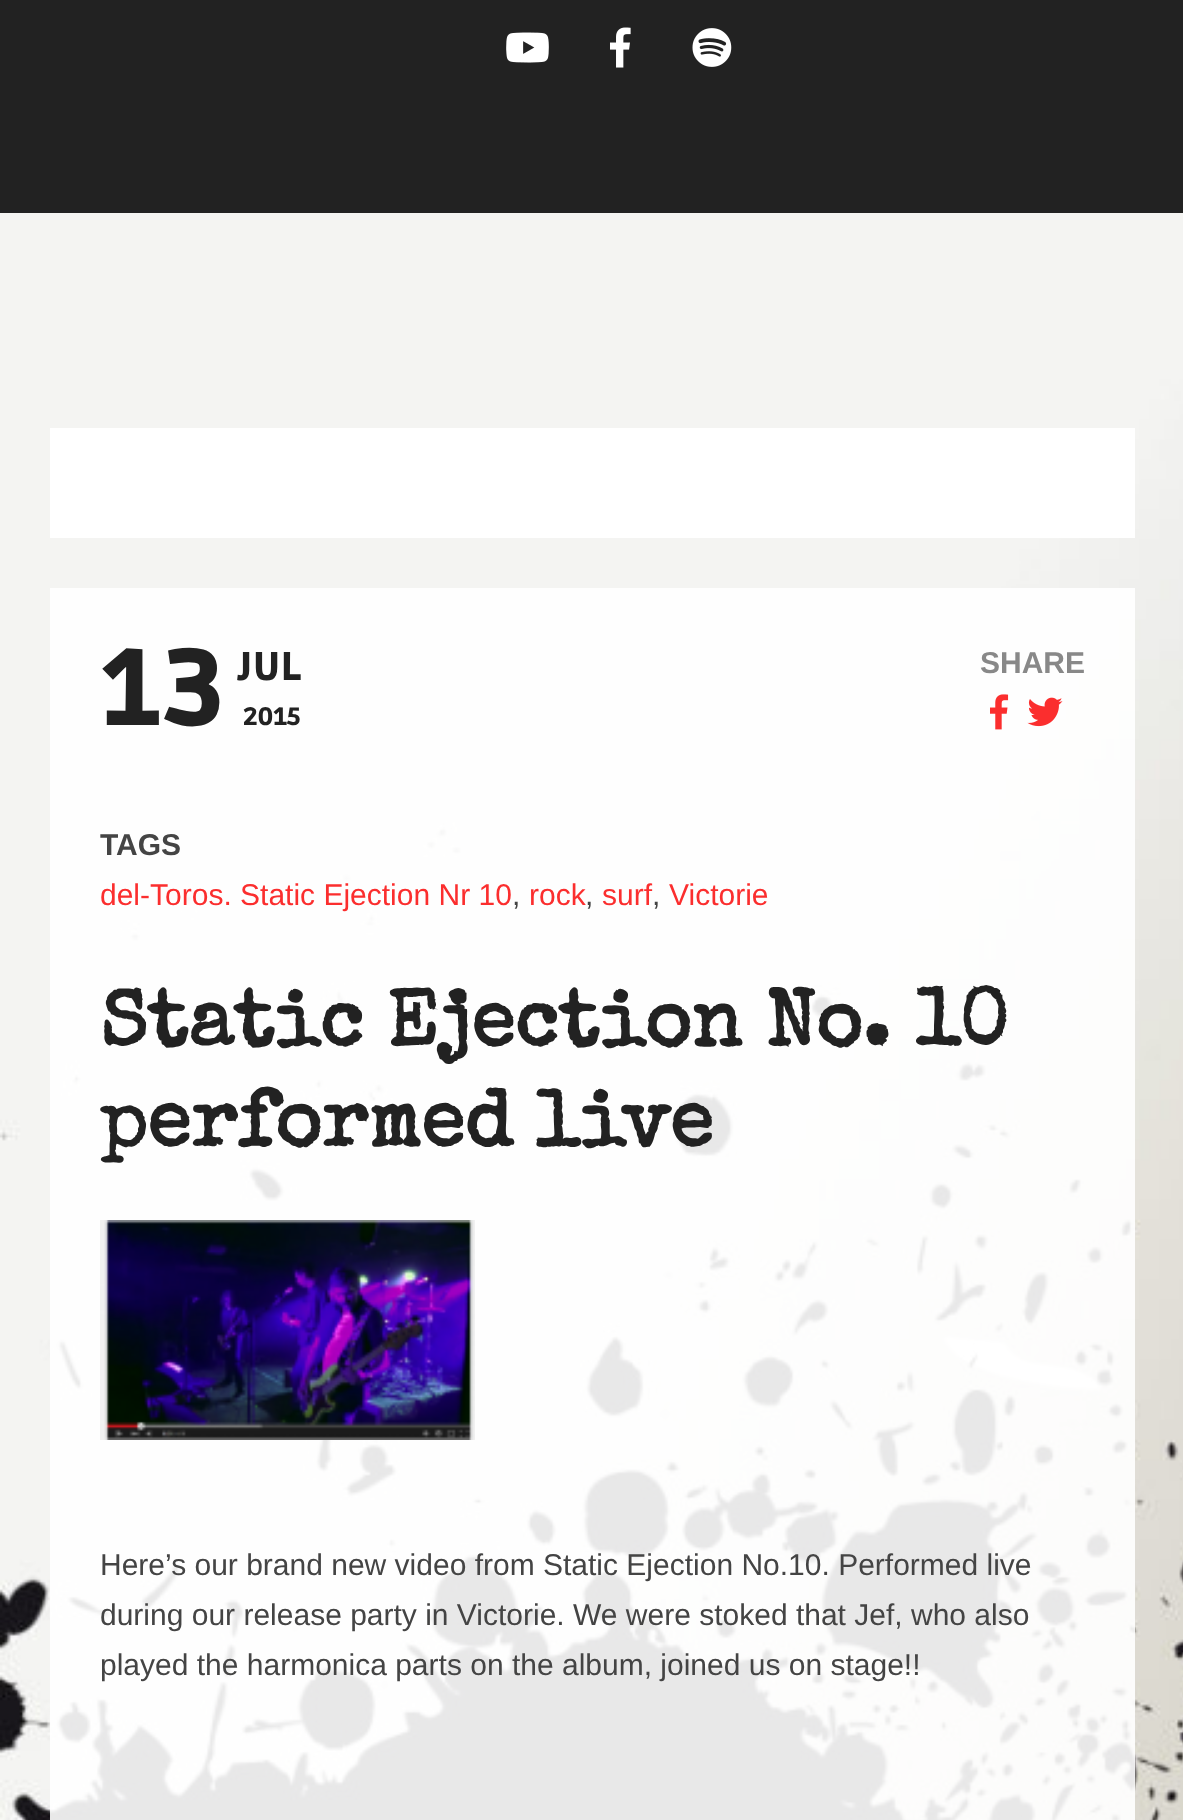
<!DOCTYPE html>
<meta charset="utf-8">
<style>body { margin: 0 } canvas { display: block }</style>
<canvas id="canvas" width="1183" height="1820"></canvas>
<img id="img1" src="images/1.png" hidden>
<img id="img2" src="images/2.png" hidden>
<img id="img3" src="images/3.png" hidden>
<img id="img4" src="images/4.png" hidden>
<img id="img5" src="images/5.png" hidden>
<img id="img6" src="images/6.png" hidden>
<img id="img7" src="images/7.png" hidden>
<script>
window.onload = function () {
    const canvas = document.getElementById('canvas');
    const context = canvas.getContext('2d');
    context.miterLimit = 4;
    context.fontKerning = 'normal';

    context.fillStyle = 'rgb(255, 255, 255)';
    context.fillRect(0, 0, 1183, 1820);
    context.drawImage(document.getElementById('img1'), 0, 213, 1183, 1607);
    context.fillStyle = 'rgb(34, 34, 34)';
    context.fillRect(0, 0, 1183, 213);
    context.drawImage(document.getElementById('img2'), 506, 32, 43, 31);
    context.drawImage(document.getElementById('img3'), 610, 27, 21, 41);
    context.drawImage(document.getElementById('img4'), 692, 28, 40, 39);
    context.fillStyle = 'rgb(255, 255, 255)';
    context.fillRect(50, 428, 1085, 110);
    context.fillStyle = 'rgba(255, 255, 255, 0.9)';
    context.fillRect(50, 588, 1085, 1232);
    context.drawImage(document.getElementById('img5'), 990, 694, 19, 36);
    context.drawImage(document.getElementById('img6'), 1027, 697, 36, 30);
    context.drawImage(document.getElementById('img7'), 100, 1220, 375, 220);
    context.font = '900 108px Ruda';
    context.fillStyle = 'rgb(34, 34, 34)';
    context.fillText('13', 100, 725);
    context.font = '900 40px Ruda';
    context.fillText('JUL', 238, 680);
    context.font = '900 25px Ruda';
    context.fillText('2015', 243, 725);
    context.font = 'bold 30px Liberation Sans';
    context.fillStyle = 'rgb(136, 136, 136)';
    context.fillText('SHARE', 980, 673);
    context.fillStyle = 'rgb(68, 68, 68)';
    context.fillText('TAGS', 100, 855);
    context.font = '30px Liberation Sans';
    context.fillStyle = 'rgb(251, 46, 46)';
    context.fillText('del-Toros. Static Ejection Nr 10', 100, 905);
    context.fillStyle = 'rgb(68, 68, 68)';
    context.fillText(',', 512, 905);
    context.fillStyle = 'rgb(251, 46, 46)';
    context.fillText('rock', 529, 905);
    context.fillStyle = 'rgb(68, 68, 68)';
    context.fillText(',', 585, 905);
    context.fillStyle = 'rgb(251, 46, 46)';
    context.fillText('surf', 602, 905);
    context.fillStyle = 'rgb(68, 68, 68)';
    context.fillText(',', 652, 905);
    context.fillStyle = 'rgb(251, 46, 46)';
    context.fillText('Victorie', 669, 905);
    context.font = 'bold 80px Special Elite';
    context.fillStyle = 'rgb(34, 34, 34)';
    context.fillText('Static Ejection No. 10', 100, 1045);
    context.fillText('performed live', 100, 1145);
    context.font = '30px Liberation Sans';
    context.fillStyle = 'rgb(68, 68, 68)';
    context.fillText('Here’s our brand new video from Static Ejection No.10. Performed live', 100, 1575);
    context.fillText('during our release party in Victorie. We were stoked that Jef, who also', 100, 1625);
    context.fillText('played the harmonica parts on the album, joined us on stage!!', 100, 1675);
};
</script>
